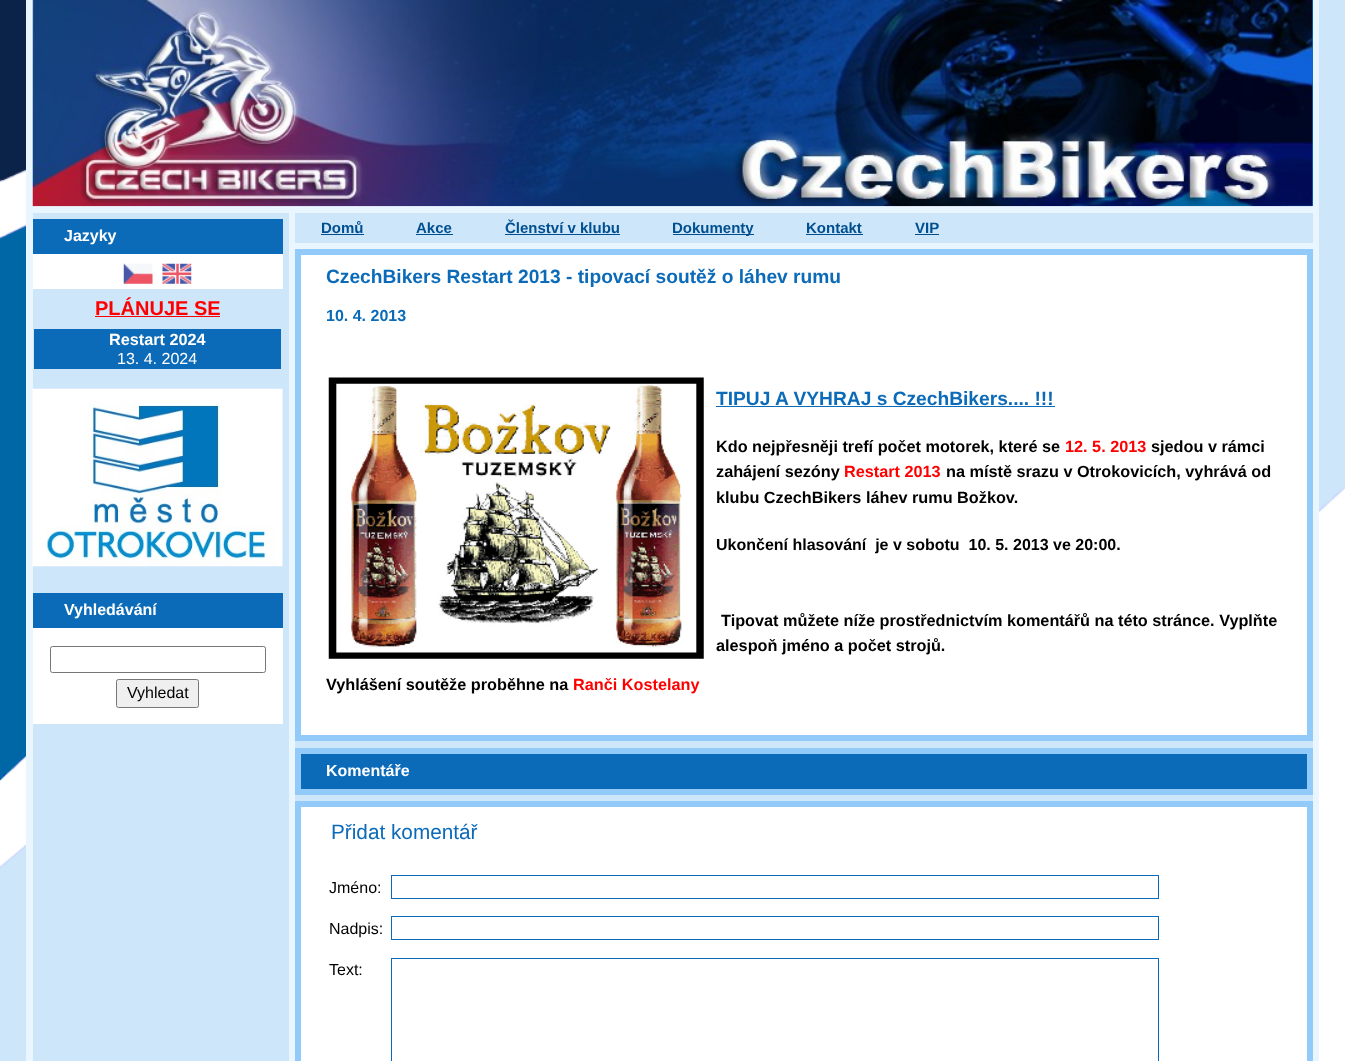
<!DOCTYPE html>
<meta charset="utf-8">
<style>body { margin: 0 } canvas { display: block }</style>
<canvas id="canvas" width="1345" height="1061"></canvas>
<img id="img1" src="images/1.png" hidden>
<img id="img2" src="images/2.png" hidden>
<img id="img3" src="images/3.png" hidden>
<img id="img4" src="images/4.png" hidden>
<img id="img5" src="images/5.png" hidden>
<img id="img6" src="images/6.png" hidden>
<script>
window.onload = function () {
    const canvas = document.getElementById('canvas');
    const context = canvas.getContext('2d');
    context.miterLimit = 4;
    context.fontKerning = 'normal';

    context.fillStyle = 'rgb(255, 255, 255)';
    context.fillRect(0, 0, 1345, 1061);
    context.drawImage(document.getElementById('img1'), 0, 0, 1345, 1061);
    context.fillStyle = 'rgb(233, 245, 255)';
    context.fillRect(26, 0, 1293, 1061);
    context.fillStyle = 'rgb(12, 107, 184)';
    context.fillRect(1312, 0, 1, 206);
    context.drawImage(document.getElementById('img2'), 32, 0, 1281, 207);
    context.fillStyle = 'rgb(206, 230, 250)';
    context.fillRect(33, 213, 1280, 848);
    context.fillStyle = 'rgb(233, 245, 255)';
    context.fillRect(289, 243, 1024, 6);
    context.fillRect(289, 213, 6, 848);
    context.fillStyle = 'rgb(0, 79, 144)';
    context.fillRect(321, 234, 43, 1);
    context.fillRect(416, 234, 37, 1);
    context.fillRect(505, 234, 115, 1);
    context.fillRect(673, 234, 81, 1);
    context.fillRect(806, 234, 57, 1);
    context.fillRect(915, 234, 24, 1);
    context.fillStyle = 'rgb(12, 107, 184)';
    context.fillRect(33, 219, 250, 35);
    context.fillStyle = 'rgb(255, 255, 255)';
    context.fillRect(33, 254, 250, 35);
    context.drawImage(document.getElementById('img3'), 123, 263, 30, 21);
    context.drawImage(document.getElementById('img4'), 162, 263, 30, 21);
    context.fillStyle = 'rgb(255, 0, 0)';
    context.fillRect(95, 316, 125, 1);
    context.fillStyle = 'rgb(12, 107, 184)';
    context.fillRect(34, 329, 247, 40);
    context.drawImage(document.getElementById('img5'), 32, 388, 251, 179);
    context.fillRect(33, 593, 250, 35);
    context.fillStyle = 'rgb(255, 255, 255)';
    context.fillRect(33, 628, 250, 96);
    context.beginPath();
    context.roundRect(50.5, 646.5, 215, 26, 2);
    context.strokeStyle = 'rgb(118, 118, 118)';
    context.stroke();
    context.fillStyle = 'rgb(239, 239, 239)';
    context.beginPath();
    context.roundRect(116.5, 679.5, 82, 28, 2);
    context.fill();
    context.stroke();
    context.fillStyle = 'rgb(255, 255, 255)';
    context.beginPath();
    context.rect(298, 252, 1012, 486);
    context.fill();
    context.strokeStyle = 'rgb(146, 203, 249)';
    context.lineWidth = 6;
    context.stroke();
    context.drawImage(document.getElementById('img6'), 328, 377, 376, 282);
    context.fillStyle = 'rgb(12, 107, 184)';
    context.fillRect(716, 406, 339, 1);
    context.beginPath();
    context.rect(298, 751, 1012, 41);
    context.fill();
    context.stroke();
    context.fillStyle = 'rgb(255, 255, 255)';
    context.beginPath();
    context.rect(298, 804, 1012, 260);
    context.fill();
    context.stroke();
    context.strokeStyle = 'rgb(12, 107, 184)';
    context.lineWidth = 1;
    context.strokeRect(391.5, 875.5, 767, 23);
    context.strokeRect(391.5, 916.5, 767, 23);
    context.strokeRect(391.5, 958.5, 767, 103);
    context.font = 'bold 15px Liberation Sans';
    context.fillStyle = 'rgb(0, 79, 144)';
    context.fillText('Domů', 321, 233);
    context.fillText('Akce', 416, 233);
    context.fillText('Členství v klubu', 505, 233);
    context.fillText('Dokumenty', 672, 233);
    context.fillText('Kontakt', 806, 233);
    context.fillText('VIP', 915, 233);
    context.font = 'bold 16px Liberation Sans';
    context.fillStyle = 'rgb(255, 255, 255)';
    context.fillText('Jazyky', 64, 241);
    context.font = 'bold 20px Liberation Sans';
    context.fillStyle = 'rgb(255, 0, 0)';
    context.fillText('PLÁNUJE SE', 95, 315);
    context.font = 'bold 16.25px Liberation Sans';
    context.fillStyle = 'rgb(255, 255, 255)';
    context.fillText('Restart 2024', 109, 345);
    context.font = '16px Liberation Sans';
    context.fillText('13. 4. 2024', 117, 364);
    context.font = 'bold 16px Liberation Sans';
    context.fillText('Vyhledávání', 64, 615);
    context.font = '16px Liberation Sans';
    context.fillStyle = 'rgb(0, 0, 0)';
    context.fillText('Vyhledat', 127, 698);
    context.font = 'bold 19.2px Liberation Sans';
    context.fillStyle = 'rgb(12, 107, 184)';
    context.fillText('CzechBikers Restart 2013 - tipovací soutěž o láhev rumu', 326, 283);
    context.font = 'bold 16px Liberation Sans';
    context.fillText('10. 4. 2013', 326, 321);
    context.font = 'bold 19.2px Liberation Sans';
    context.fillText('TIPUJ A VYHRAJ s CzechBikers.... !!!', 716, 405);
    context.font = 'bold 16.25px Liberation Sans';
    context.fillStyle = 'rgb(0, 0, 0)';
    context.fillText('Kdo nejpřesněji trefí počet motorek, které se', 716, 452);
    context.fillStyle = 'rgb(255, 0, 0)';
    context.fillText('12. 5. 2013', 1065, 452);
    context.fillStyle = 'rgb(0, 0, 0)';
    context.fillText('sjedou v rámci', 1151, 452);
    context.fillText('zahájení sezóny', 716, 477);
    context.fillStyle = 'rgb(255, 0, 0)';
    context.fillText('Restart 2013', 844, 477);
    context.fillStyle = 'rgb(0, 0, 0)';
    context.fillText('na místě srazu v Otrokovicích, vyhrává od', 946, 477);
    context.fillText('klubu CzechBikers láhev rumu Božkov.', 716, 503);
    context.font = 'bold 16px Liberation Sans';
    context.fillText('Ukončení hlasování  je v sobotu  10. 5. 2013 ve 20:00.', 716, 550);
    context.font = 'bold 16.25px Liberation Sans';
    context.fillText('Tipovat můžete níže prostřednictvím komentářů na této stránce. Vyplňte', 721, 626);
    context.fillText('alespoň jméno a počet strojů.', 716, 651);
    context.fillText('Vyhlášení soutěže proběhne na', 326, 690);
    context.fillStyle = 'rgb(255, 0, 0)';
    context.fillText('Ranči Kostelany', 573, 690);
    context.font = 'bold 16px Liberation Sans';
    context.fillStyle = 'rgb(255, 255, 255)';
    context.fillText('Komentáře', 326, 776);
    context.font = '20.75px Liberation Sans';
    context.fillStyle = 'rgb(12, 107, 184)';
    context.fillText('Přidat komentář', 331, 839);
    context.font = '16px Liberation Sans';
    context.fillStyle = 'rgb(0, 0, 0)';
    context.fillText('Jméno:', 329, 893);
    context.fillText('Nadpis:', 329, 934);
    context.fillText('Text:', 329, 975);
};
</script>
